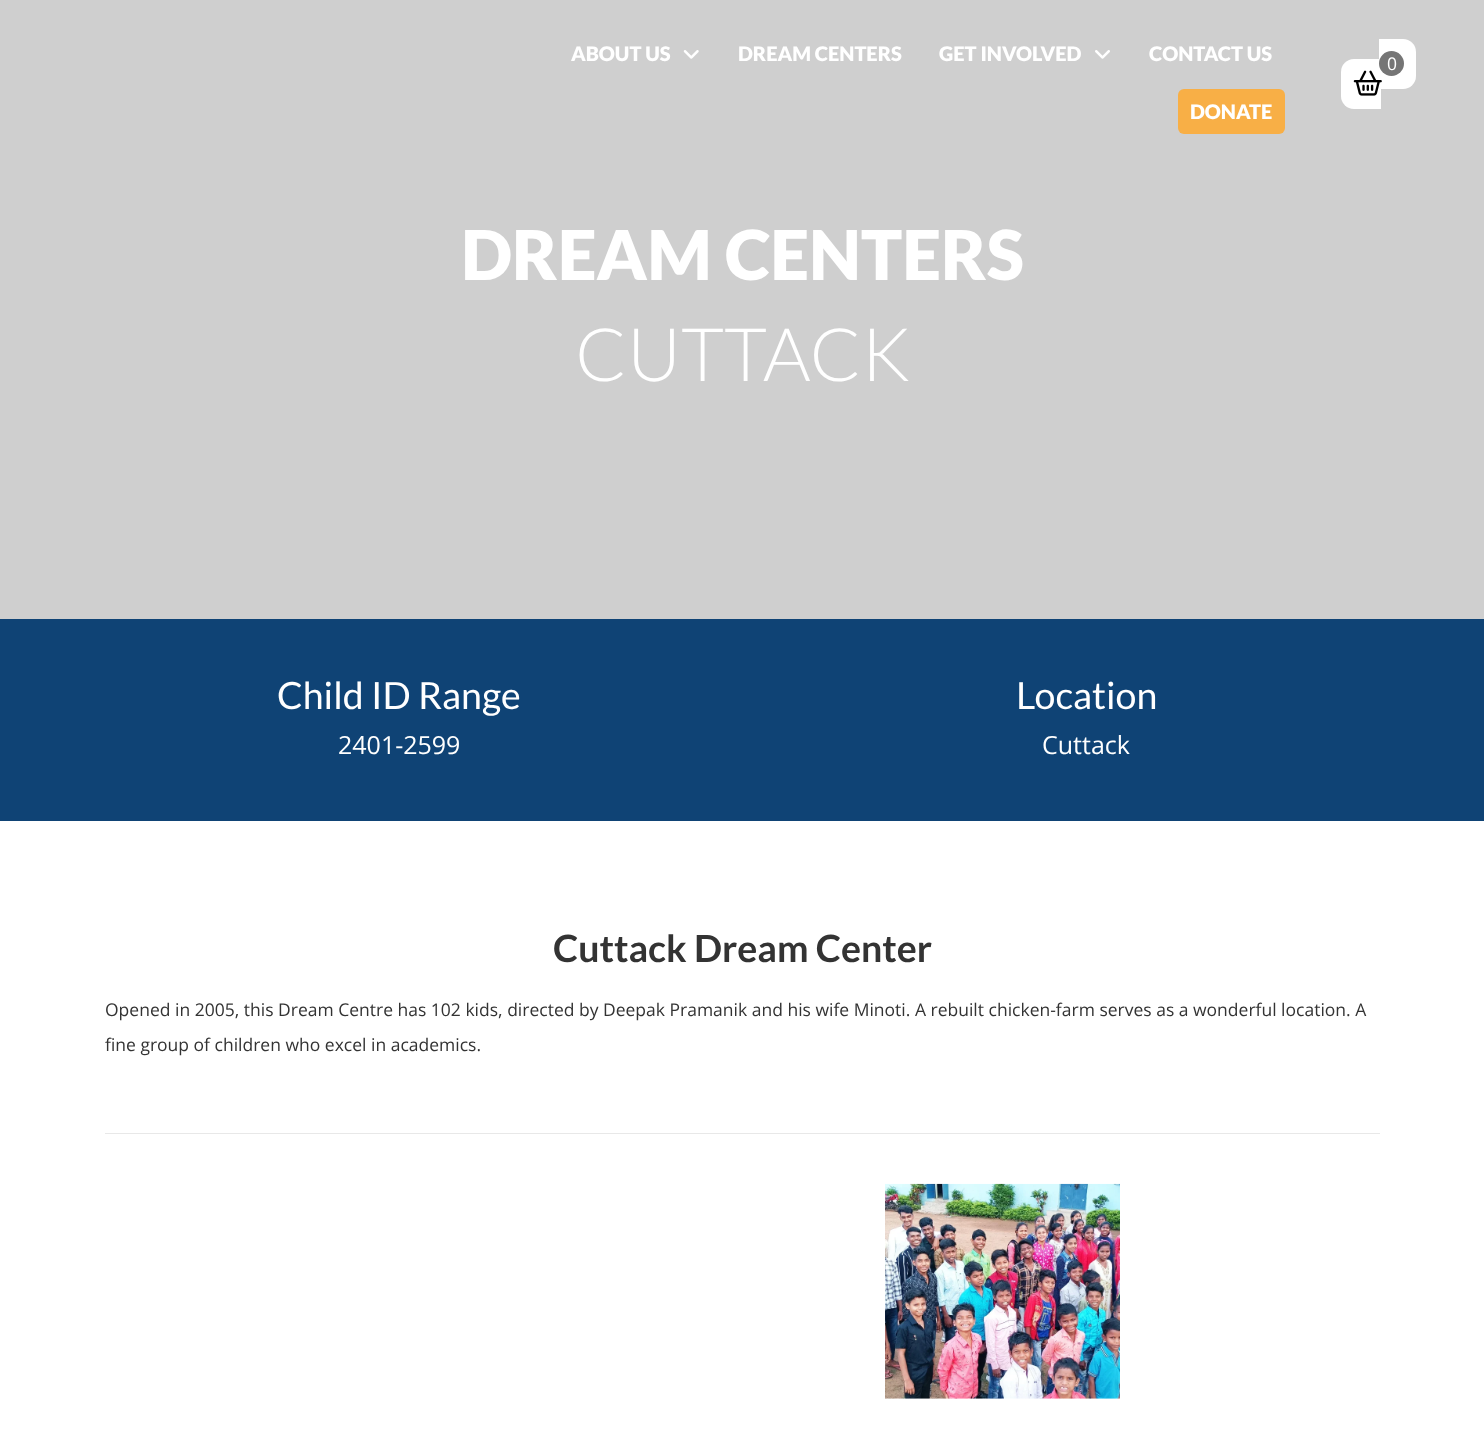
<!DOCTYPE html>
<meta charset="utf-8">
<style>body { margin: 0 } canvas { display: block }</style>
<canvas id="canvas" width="1484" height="1436"></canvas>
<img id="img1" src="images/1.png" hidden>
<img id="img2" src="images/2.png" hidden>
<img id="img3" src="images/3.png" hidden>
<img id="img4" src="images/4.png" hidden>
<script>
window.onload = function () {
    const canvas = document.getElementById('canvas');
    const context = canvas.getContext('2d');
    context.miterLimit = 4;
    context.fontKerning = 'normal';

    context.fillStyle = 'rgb(255, 255, 255)';
    context.fillRect(0, 0, 1484, 1436);
    context.fillStyle = 'rgb(207, 207, 207)';
    context.fillRect(0, 0, 1484, 619);
    context.drawImage(document.getElementById('img1'), 683, 50, 16, 9);
    context.drawImage(document.getElementById('img2'), 1095, 50, 15, 9);
    context.fillStyle = 'rgb(248, 175, 70)';
    context.beginPath();
    context.roundRect(1178, 89, 107, 45, 6);
    context.fill();
    context.fillStyle = 'rgb(255, 255, 255)';
    context.beginPath();
    context.roundRect(1341, 59, 40, 50, [13, 0, 0, 13]);
    context.fill();
    context.beginPath();
    context.roundRect(1379, 39, 37, 50, [0, 13, 13, 0]);
    context.fill();
    context.drawImage(document.getElementById('img3'), 1353, 70, 29, 26);
    context.fillStyle = 'rgb(117, 117, 117)';
    context.beginPath();
    context.arc(1391.5, 63.5, 12.5, 0, 2 * Math.PI);
    context.fill();
    context.fillStyle = 'rgb(15, 67, 117)';
    context.fillRect(0, 619, 1484, 202);
    context.fillStyle = 'rgb(232, 232, 232)';
    context.fillRect(105, 1133, 1275, 1);
    context.drawImage(document.getElementById('img4'), 885, 1183, 235, 216);
    context.font = '900 20px Lato';
    context.fillStyle = 'rgb(255, 255, 255)';
    context.fillText('ABOUT US', 571, 61);
    context.fillText('DREAM CENTERS', 738, 61);
    context.fillText('GET INVOLVED', 939, 61);
    context.fillText('CONTACT US', 1149, 61);
    context.fillText('DONATE', 1190, 119);
    context.font = '17.5px Open Sans';
    context.fillText('0', 1387, 70);
    context.font = '900 68.75px Lato';
    context.fillText('DREAM CENTERS', 461, 280);
    context.font = '300 73.75px Lato';
    context.fillText('CUTTACK', 575, 381);
    context.font = '37.5px Lato';
    context.fillText('Child ID Range', 277, 709);
    context.font = '25px Open Sans';
    context.fillText('2401-2599', 338, 754);
    context.font = '37.5px Lato';
    context.fillText('Location', 1016, 709);
    context.font = '25px Open Sans';
    context.fillText('Cuttack', 1042, 754);
    context.font = 'bold 37.5px Lato';
    context.fillStyle = 'rgb(51, 51, 51)';
    context.fillText('Cuttack Dream Center', 553, 962);
    context.font = '17.5px Open Sans';
    context.fillText('Opened in 2005, this Dream Centre has 102 kids, directed by Deepak Pramanik and his wife Minoti. A rebuilt chicken-farm serves as a wonderful location. A', 105, 1016);
    context.fillText('fine group of children who excel in academics.', 105, 1051);
};
</script>
